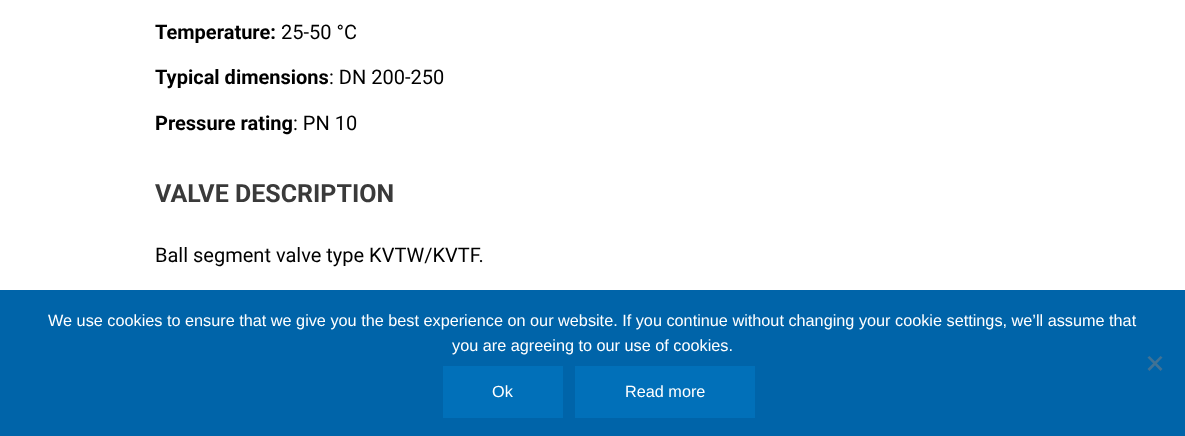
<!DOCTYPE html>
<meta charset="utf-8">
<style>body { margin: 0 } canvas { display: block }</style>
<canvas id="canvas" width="1185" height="436"></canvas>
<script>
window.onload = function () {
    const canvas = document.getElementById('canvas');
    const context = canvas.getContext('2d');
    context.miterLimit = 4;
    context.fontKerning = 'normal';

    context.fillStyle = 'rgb(255, 255, 255)';
    context.fillRect(0, 0, 1185, 436);
    context.fillStyle = 'rgb(0, 100, 169)';
    context.fillRect(0, 290, 1185, 146);
    context.fillStyle = 'rgb(64, 114, 149)';
    context.beginPath();
    context.moveTo(1160.5, 356);
    context.lineTo(1162.5, 357.5);
    context.lineTo(1149.5, 371);
    context.lineTo(1147.5, 369);
    context.closePath();
    context.fill();
    context.beginPath();
    context.moveTo(1147.5, 357.5);
    context.lineTo(1149.5, 356);
    context.lineTo(1162.5, 369);
    context.lineTo(1160.5, 371);
    context.closePath();
    context.fill();
    context.fillStyle = 'rgb(1, 112, 185)';
    context.fillRect(443, 366, 120, 52);
    context.fillRect(575, 366, 180, 52);
    context.font = 'bold 20px Roboto';
    context.fillStyle = 'rgb(0, 0, 0)';
    context.fillText('Temperature:', 155, 39);
    context.font = '20px Roboto';
    context.fillText('25-50 °C', 281, 39);
    context.font = 'bold 20px Roboto';
    context.fillText('Typical dimensions', 155, 84);
    context.font = '20px Roboto';
    context.fillText(': DN 200-250', 329, 84);
    context.font = 'bold 20px Roboto';
    context.fillText('Pressure rating', 155, 130);
    context.font = '20px Roboto';
    context.fillText(': PN 10', 293, 130);
    context.font = 'bold 25px Roboto';
    context.fillStyle = 'rgb(58, 58, 58)';
    context.fillText('VALVE DESCRIPTION', 155, 202);
    context.font = '20px Roboto';
    context.fillStyle = 'rgb(0, 0, 0)';
    context.fillText('Ball segment valve type KVTW/KVTF.', 155, 262);
    context.font = '16.25px Liberation Sans';
    context.fillStyle = 'rgb(255, 255, 255)';
    context.fillText('We use cookies to ensure that we give you the best experience on our website. If you continue without changing your cookie settings, we’ll assume that', 48, 326);
    context.fillText('you are agreeing to our use of cookies.', 452, 351);
    context.fillText('Ok', 492, 397);
    context.fillText('Read more', 625, 397);
};
</script>
